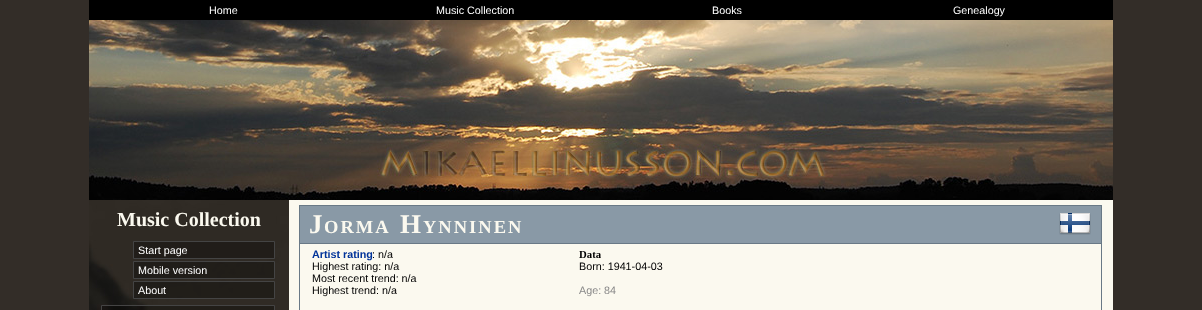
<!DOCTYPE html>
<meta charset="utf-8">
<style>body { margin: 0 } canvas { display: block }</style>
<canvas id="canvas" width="1202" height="310"></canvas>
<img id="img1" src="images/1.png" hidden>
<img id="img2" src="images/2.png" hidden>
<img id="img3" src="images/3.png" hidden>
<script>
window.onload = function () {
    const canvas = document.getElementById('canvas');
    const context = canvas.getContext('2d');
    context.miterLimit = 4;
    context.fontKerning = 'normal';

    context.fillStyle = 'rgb(51, 45, 40)';
    context.fillRect(0, 0, 1202, 310);
    context.fillStyle = 'rgb(251, 249, 239)';
    context.fillRect(289, 200, 824, 110);
    context.fillStyle = 'rgb(0, 0, 0)';
    context.fillRect(89, 0, 1024, 20);
    context.drawImage(document.getElementById('img1'), 89, 20, 1024, 180);
    context.drawImage(document.getElementById('img2'), 89, 200, 200, 110);
    context.fillStyle = 'rgb(33, 29, 25)';
    context.beginPath();
    context.rect(133.5, 241.5, 141, 17);
    context.fill();
    context.strokeStyle = 'rgb(68, 68, 68)';
    context.stroke();
    context.fillStyle = 'rgba(0, 0, 0, 0.3)';
    context.beginPath();
    context.rect(133.5, 261.5, 141, 17);
    context.fill();
    context.stroke();
    context.beginPath();
    context.rect(133.5, 281.5, 141, 17);
    context.fill();
    context.stroke();
    context.beginPath();
    context.rect(101.5, 305.5, 173, 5);
    context.fill();
    context.stroke();
    context.fillStyle = 'rgb(137, 153, 166)';
    context.fillRect(300, 206, 801, 37);
    context.fillStyle = 'rgb(105, 121, 134)';
    context.fillRect(299, 205, 803, 1);
    context.fillRect(1101, 243, 1, 67);
    context.fillRect(1101, 205, 1, 39);
    context.fillRect(299, 243, 1, 67);
    context.fillRect(299, 243, 803, 1);
    context.fillRect(299, 205, 1, 39);
    context.drawImage(document.getElementById('img3'), 1059, 213, 32, 22);
    context.font = '10.75px Liberation Sans';
    context.fillStyle = 'rgb(255, 255, 255)';
    context.fillText('Home', 209, 14);
    context.fillText('Music Collection', 436, 14);
    context.fillText('Books', 712, 14);
    context.fillText('Genealogy', 953, 14);
    context.font = 'bold 20px Liberation Serif';
    context.fillStyle = 'rgb(251, 249, 239)';
    context.fillText('Music Collection', 117, 226);
    context.font = '10.75px Liberation Sans';
    context.fillStyle = 'rgb(255, 255, 255)';
    context.fillText('Start page', 138, 254);
    context.fillText('Mobile version', 138, 274);
    context.fillText('About', 138, 294);
    context.letterSpacing = '2px';
    context.font = 'bold 27px Liberation Serif';
    context.fillStyle = 'rgb(251, 249, 239)';
    context.fillText('J', 309, 233);
    context.font = 'bold 18.5px Liberation Serif';
    context.fillText('ORMA', 324, 233);
    context.font = 'bold 27px Liberation Serif';
    context.fillText('H', 400, 233);
    context.font = 'bold 18.5px Liberation Serif';
    context.fillText('YNNINEN', 423, 233);
    context.letterSpacing = '0px';
    context.font = 'bold 10.75px Liberation Sans';
    context.fillStyle = 'rgb(0, 51, 153)';
    context.fillText('Artist rating', 312, 258);
    context.font = '10.75px Liberation Sans';
    context.fillStyle = 'rgb(0, 0, 0)';
    context.fillText(': n/a', 372, 258);
    context.fillText('Highest rating: n/a', 312, 270);
    context.fillText('Most recent trend: n/a', 312, 282);
    context.fillText('Highest trend: n/a', 312, 294);
    context.font = 'bold 10.75px Liberation Serif';
    context.fillText('Data', 579, 258);
    context.font = '10.75px Liberation Sans';
    context.fillText('Born: 1941-04-03', 579, 270);
    context.fillStyle = 'rgb(136, 136, 136)';
    context.fillText('Age: 84', 579, 294);
};
</script>
